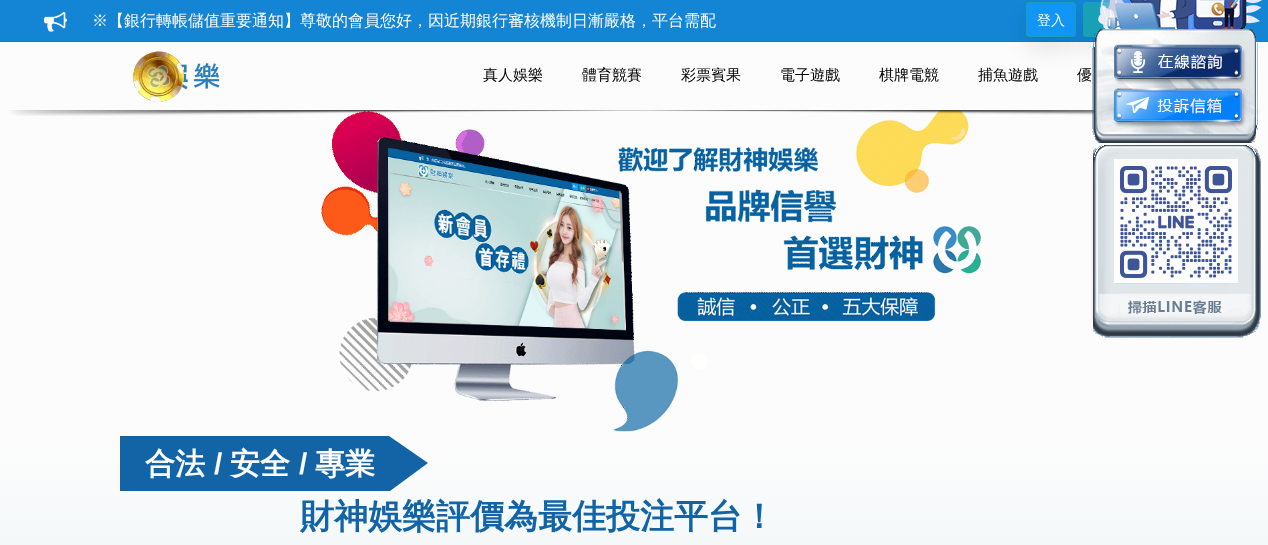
<!DOCTYPE html>
<meta charset="utf-8">
<style>body { margin: 0 } canvas { display: block }</style>
<canvas id="canvas" width="1268" height="545"></canvas>
<img id="img1" src="images/1.png" hidden>
<img id="img2" src="images/2.png" hidden>
<img id="img3" src="images/4.png" hidden>
<img id="img4" src="images/3.png" hidden>
<img id="img5" src="images/5.png" hidden>
<img id="img6" src="images/6.png" hidden>
<img id="img7" src="images/7.png" hidden>
<script>
window.onload = function () {
    const canvas = document.getElementById('canvas');
    const context = canvas.getContext('2d');
    context.miterLimit = 4;
    context.fontKerning = 'normal';
    let gradient;

    context.fillStyle = 'rgb(255, 255, 255)';
    context.fillRect(0, 0, 1268, 545);
    context.fillStyle = 'rgb(19, 133, 212)';
    context.fillRect(0, 0, 1268, 41);
    context.fillStyle = 'rgb(18, 126, 201)';
    context.fillRect(0, 41, 1268, 1);
    context.drawImage(document.getElementById('img1'), 44, 12, 23, 20);
    context.fillStyle = 'rgb(252, 252, 252)';
    context.fillRect(0, 42, 1268, 68);
    context.fillStyle = 'rgba(0, 0, 0, 0.07)';
    context.filter = 'blur(10px)';
    context.beginPath();
    context.roundRect(1026, 17, 50, 35, 3);
    context.fill();
    context.filter = 'none';
    context.fillStyle = 'rgb(18, 150, 245)';
    context.beginPath();
    context.roundRect(1026.5, 2.5, 49, 34, 2.5);
    context.fill();
    context.strokeStyle = 'rgb(23, 160, 182)';
    context.stroke();
    context.fillStyle = 'rgba(0, 0, 0, 0.07)';
    context.filter = 'blur(10px)';
    context.beginPath();
    context.roundRect(1083, 17, 50, 35, 3);
    context.fill();
    context.filter = 'none';
    context.fillStyle = 'rgb(23, 160, 182)';
    context.beginPath();
    context.roundRect(1083.5, 2.5, 49, 34, 2.5);
    context.fill();
    context.stroke();
    context.drawImage(document.getElementById('img2'), 133, 51, 87, 51);
    gradient = context.createLinearGradient(634, 101, 634, 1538);
    gradient.addColorStop(0.24, 'rgb(252, 252, 252)');
    gradient.addColorStop(1, 'rgb(162, 213, 223)');
    context.fillStyle = gradient;
    context.fillRect(0, 110, 1268, 435);
    context.drawImage(document.getElementById('img3'), 321, 110, 661, 322);
    context.drawImage(document.getElementById('img4'), 9, 110, 1251, 6);
    context.fillStyle = 'rgb(18, 100, 166)';
    context.beginPath();
    context.moveTo(120, 436);
    context.lineTo(389, 436);
    context.lineTo(428, 463);
    context.lineTo(390, 491);
    context.lineTo(120, 491);
    context.closePath();
    context.fill();
    context.fillStyle = 'rgb(255, 255, 254)';
    context.beginPath();
    context.arc(699, 362, 8, 0, 2 * Math.PI);
    context.fill();
    context.font = '500 16px WenQuanYi Zen Hei';
    context.fillStyle = 'rgb(252, 252, 252)';
    context.fillText('※【銀行轉帳儲值重要通知】尊敬的會員您好，因近期銀行審核機制日漸嚴格，平台需配', 92, 26);
    context.font = '500 14px WenQuanYi Zen Hei';
    context.fillText('登入', 1037, 25);
    context.font = '500 15px WenQuanYi Zen Hei';
    context.fillStyle = 'rgb(0, 0, 0)';
    context.fillText('真人娛樂', 483, 80);
    context.fillText('體育競賽', 582, 80);
    context.fillText('彩票賓果', 681, 80);
    context.fillText('電子遊戲', 780, 80);
    context.fillText('棋牌電競', 879, 80);
    context.fillText('捕魚遊戲', 978, 80);
    context.fillText('優', 1077, 80);
    context.font = 'bold 30px WenQuanYi Zen Hei';
    context.fillStyle = 'rgb(252, 252, 252)';
    context.fillText('合法', 145, 474);
    context.font = 'bold 30px Liberation Sans';
    context.fillText('/', 214, 474);
    context.font = 'bold 30px WenQuanYi Zen Hei';
    context.fillText('安全', 230, 474);
    context.font = 'bold 30px Liberation Sans';
    context.fillText('/', 299, 474);
    context.font = 'bold 30px WenQuanYi Zen Hei';
    context.fillText('專業', 315, 474);
    context.font = 'bold 34px WenQuanYi Zen Hei';
    context.fillStyle = 'rgb(18, 100, 166)';
    context.fillText('財神娛樂評價為最佳投注平台！', 300, 528);
    context.drawImage(document.getElementById('img5'), 1091, 0, 172, 338);
    context.drawImage(document.getElementById('img6'), 1114, 44, 132, 40);
    context.drawImage(document.getElementById('img7'), 1113, 87, 133, 40);
};
</script>
